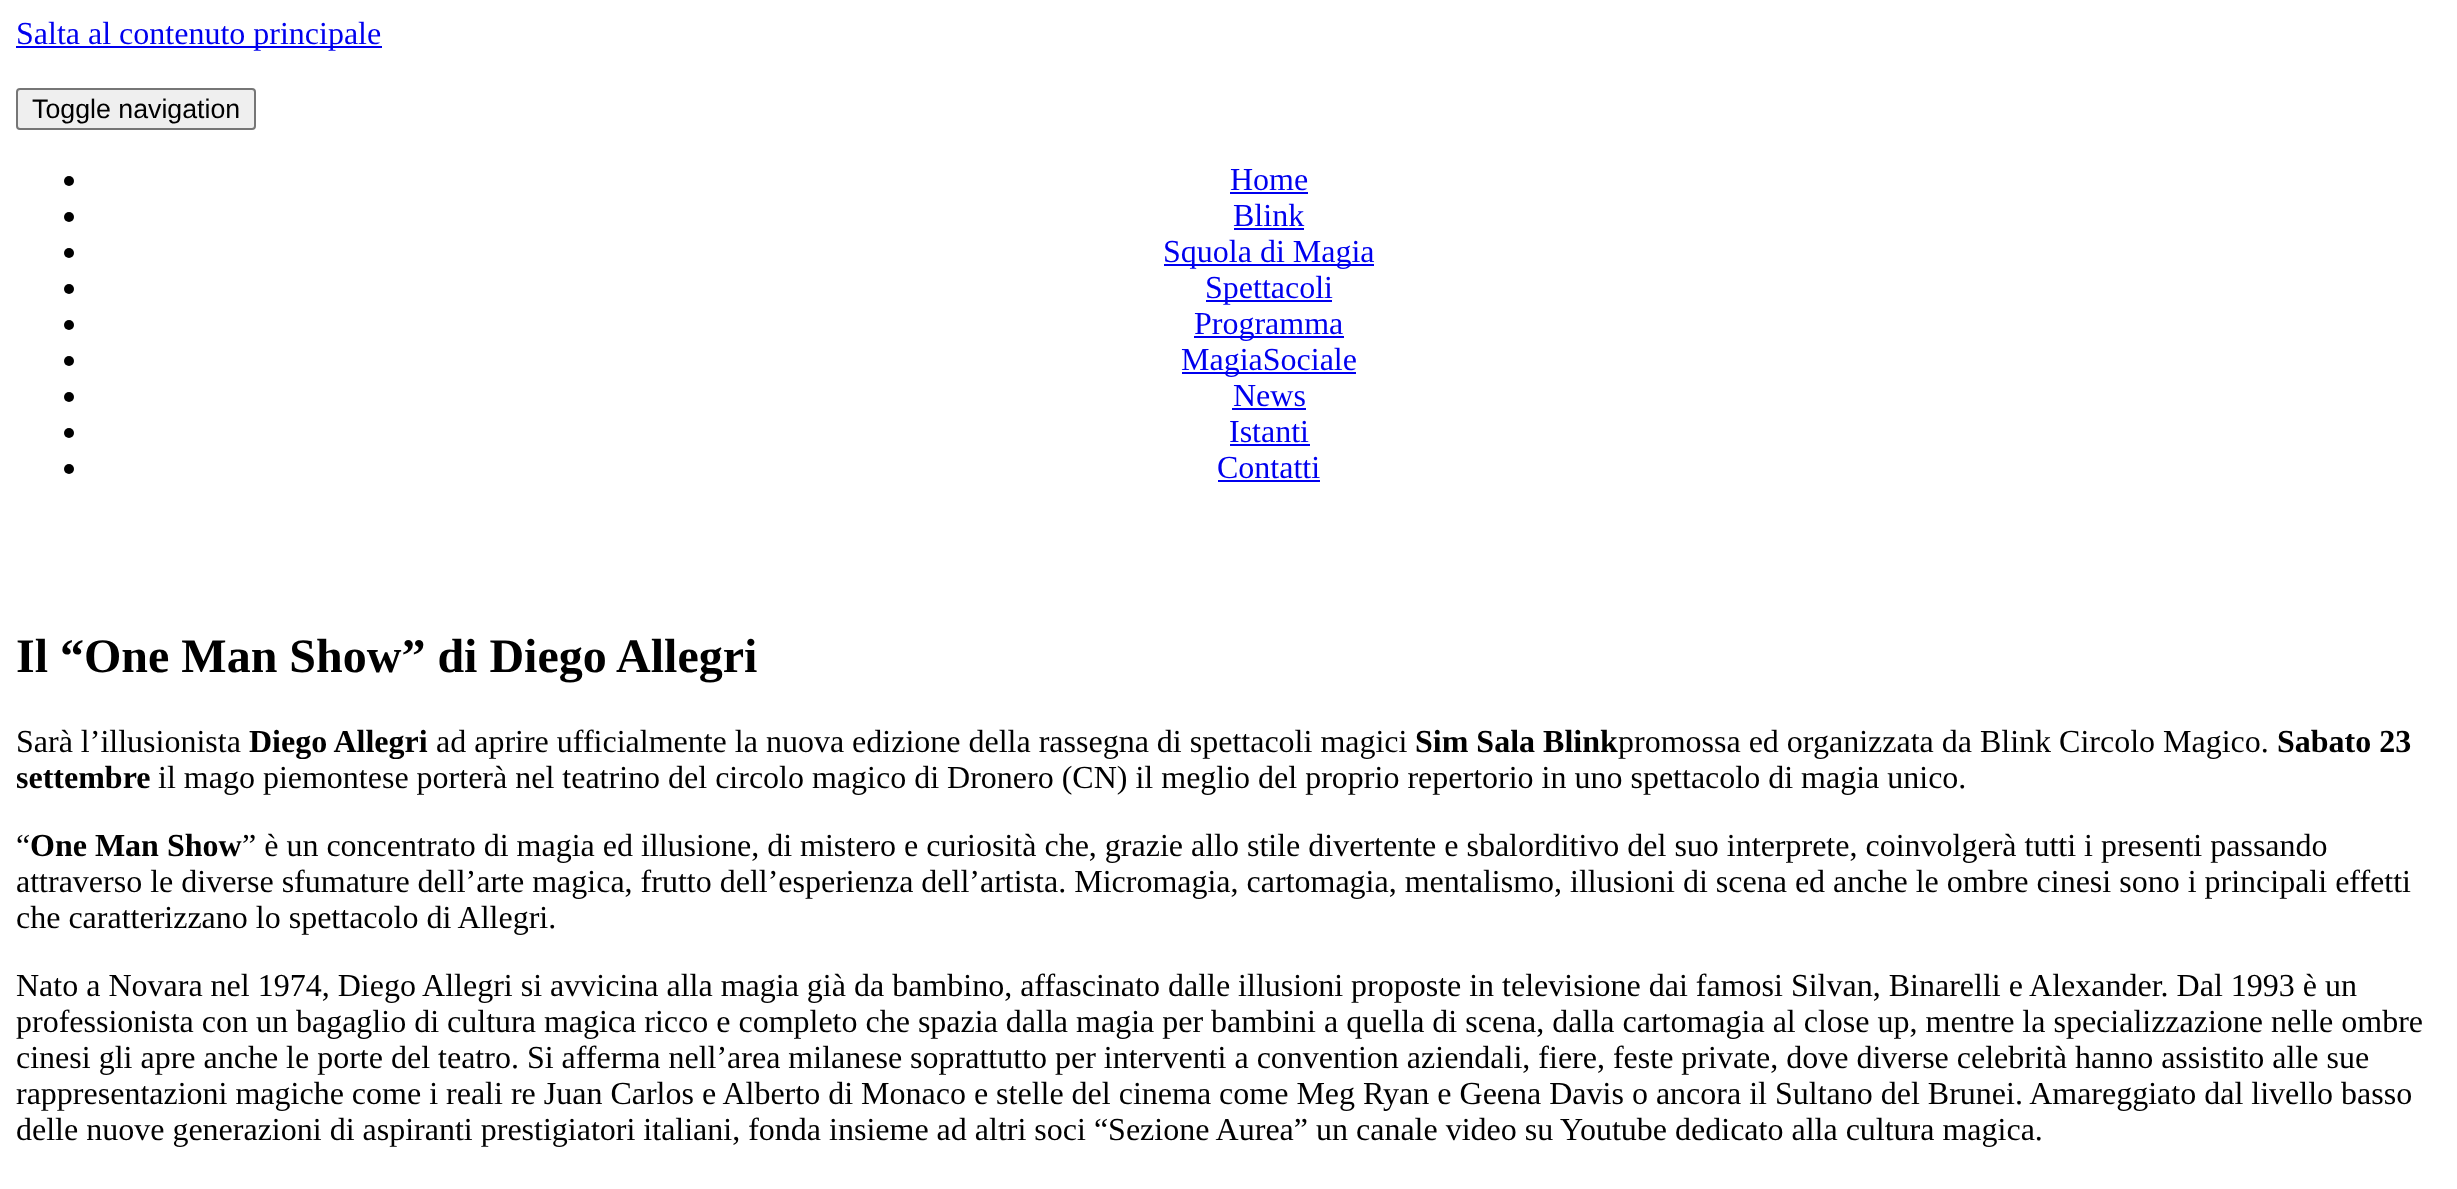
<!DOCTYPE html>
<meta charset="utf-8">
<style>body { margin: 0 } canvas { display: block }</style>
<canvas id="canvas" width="2457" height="1189"></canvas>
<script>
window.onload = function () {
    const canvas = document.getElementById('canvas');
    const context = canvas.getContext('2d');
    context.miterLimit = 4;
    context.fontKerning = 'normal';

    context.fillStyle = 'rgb(255, 255, 255)';
    context.fillRect(0, 0, 2457, 1189);
    context.fillStyle = 'rgb(0, 0, 238)';
    context.fillRect(16, 46, 366, 2);
    context.fillStyle = 'rgb(239, 239, 239)';
    context.beginPath();
    context.roundRect(17, 89, 238, 40, 3);
    context.fill();
    context.strokeStyle = 'rgb(118, 118, 118)';
    context.lineWidth = 2;
    context.stroke();
    context.fillStyle = 'rgb(0, 0, 0)';
    context.beginPath();
    context.arc(69, 181, 5, 0, 2 * Math.PI);
    context.fill();
    context.fillStyle = 'rgb(0, 0, 238)';
    context.fillRect(1230, 192, 78, 2);
    context.fillStyle = 'rgb(0, 0, 0)';
    context.beginPath();
    context.arc(69, 217, 5, 0, 2 * Math.PI);
    context.fill();
    context.fillStyle = 'rgb(0, 0, 238)';
    context.fillRect(1234, 228, 70, 2);
    context.fillStyle = 'rgb(0, 0, 0)';
    context.beginPath();
    context.arc(69, 253, 5, 0, 2 * Math.PI);
    context.fill();
    context.fillStyle = 'rgb(0, 0, 238)';
    context.fillRect(1164, 264, 210, 2);
    context.fillStyle = 'rgb(0, 0, 0)';
    context.beginPath();
    context.arc(69, 289, 5, 0, 2 * Math.PI);
    context.fill();
    context.fillStyle = 'rgb(0, 0, 238)';
    context.fillRect(1206, 300, 126, 2);
    context.fillStyle = 'rgb(0, 0, 0)';
    context.beginPath();
    context.arc(69, 325, 5, 0, 2 * Math.PI);
    context.fill();
    context.fillStyle = 'rgb(0, 0, 238)';
    context.fillRect(1194, 336, 150, 2);
    context.fillStyle = 'rgb(0, 0, 0)';
    context.beginPath();
    context.arc(69, 361, 5, 0, 2 * Math.PI);
    context.fill();
    context.fillStyle = 'rgb(0, 0, 238)';
    context.fillRect(1182, 372, 174, 2);
    context.fillStyle = 'rgb(0, 0, 0)';
    context.beginPath();
    context.arc(69, 397, 5, 0, 2 * Math.PI);
    context.fill();
    context.fillStyle = 'rgb(0, 0, 238)';
    context.fillRect(1232, 408, 74, 2);
    context.fillStyle = 'rgb(0, 0, 0)';
    context.beginPath();
    context.arc(69, 433, 5, 0, 2 * Math.PI);
    context.fill();
    context.fillStyle = 'rgb(0, 0, 238)';
    context.fillRect(1230, 444, 80, 2);
    context.fillStyle = 'rgb(0, 0, 0)';
    context.beginPath();
    context.arc(69, 469, 5, 0, 2 * Math.PI);
    context.fill();
    context.fillStyle = 'rgb(0, 0, 238)';
    context.fillRect(1218, 480, 102, 2);
    context.font = '32px Liberation Serif';
    context.fillText('Salta al contenuto principale', 16, 44);
    context.font = '26.75px Liberation Sans';
    context.fillStyle = 'rgb(0, 0, 0)';
    context.fillText('Toggle navigation', 32, 118);
    context.font = '32px Liberation Serif';
    context.fillStyle = 'rgb(0, 0, 238)';
    context.fillText('Home', 1230, 190);
    context.fillText('Blink', 1233, 226);
    context.fillText('Squola di Magia', 1163, 262);
    context.fillText('Spettacoli', 1205, 298);
    context.fillText('Programma', 1194, 334);
    context.fillText('MagiaSociale', 1181, 370);
    context.fillText('News', 1233, 406);
    context.fillText('Istanti', 1229, 442);
    context.fillText('Contatti', 1217, 478);
    context.font = 'bold 48px Liberation Serif';
    context.fillStyle = 'rgb(0, 0, 0)';
    context.fillText('Il “One Man Show” di Diego Allegri', 16, 672);
    context.font = '32px Liberation Serif';
    context.fillText('Sarà l’illusionista', 16, 752);
    context.font = 'bold 32px Liberation Serif';
    context.fillText('Diego Allegri', 249, 752);
    context.font = '32px Liberation Serif';
    context.fillText('ad aprire ufficialmente la nuova edizione della rassegna di spettacoli magici', 436, 752);
    context.font = 'bold 32px Liberation Serif';
    context.fillText('Sim Sala Blink', 1415, 752);
    context.font = '32px Liberation Serif';
    context.fillText('promossa ed organizzata da Blink Circolo Magico.', 1618, 752);
    context.font = 'bold 32px Liberation Serif';
    context.fillText('Sabato 23', 2277, 752);
    context.fillText('settembre', 16, 788);
    context.font = '32px Liberation Serif';
    context.fillText('il mago piemontese porterà nel teatrino del circolo magico di Dronero (CN) il meglio del proprio repertorio in uno spettacolo di magia unico.', 158, 788);
    context.fillText('“', 16, 856);
    context.font = 'bold 32px Liberation Serif';
    context.fillText('One Man Show', 30, 856);
    context.font = '32px Liberation Serif';
    context.fillText('” è un concentrato di magia ed illusione, di mistero e curiosità che, grazie allo stile divertente e sbalorditivo del suo interprete, coinvolgerà tutti i presenti passando', 242, 856);
    context.fillText('attraverso le diverse sfumature dell’arte magica, frutto dell’esperienza dell’artista. Micromagia, cartomagia, mentalismo, illusioni di scena ed anche le ombre cinesi sono i principali effetti', 16, 892);
    context.fillText('che caratterizzano lo spettacolo di Allegri.', 16, 928);
    context.fillText('Nato a Novara nel 1974, Diego Allegri si avvicina alla magia già da bambino, affascinato dalle illusioni proposte in televisione dai famosi Silvan, Binarelli e Alexander. Dal 1993 è un', 16, 996);
    context.fillText('professionista con un bagaglio di cultura magica ricco e completo che spazia dalla magia per bambini a quella di scena, dalla cartomagia al close up, mentre la specializzazione nelle ombre', 16, 1032);
    context.fillText('cinesi gli apre anche le porte del teatro. Si afferma nell’area milanese soprattutto per interventi a convention aziendali, fiere, feste private, dove diverse celebrità hanno assistito alle sue', 16, 1068);
    context.fillText('rappresentazioni magiche come i reali re Juan Carlos e Alberto di Monaco e stelle del cinema come Meg Ryan e Geena Davis o ancora il Sultano del Brunei. Amareggiato dal livello basso', 16, 1104);
    context.fillText('delle nuove generazioni di aspiranti prestigiatori italiani, fonda insieme ad altri soci “Sezione Aurea” un canale video su Youtube dedicato alla cultura magica.', 16, 1140);
};
</script>
